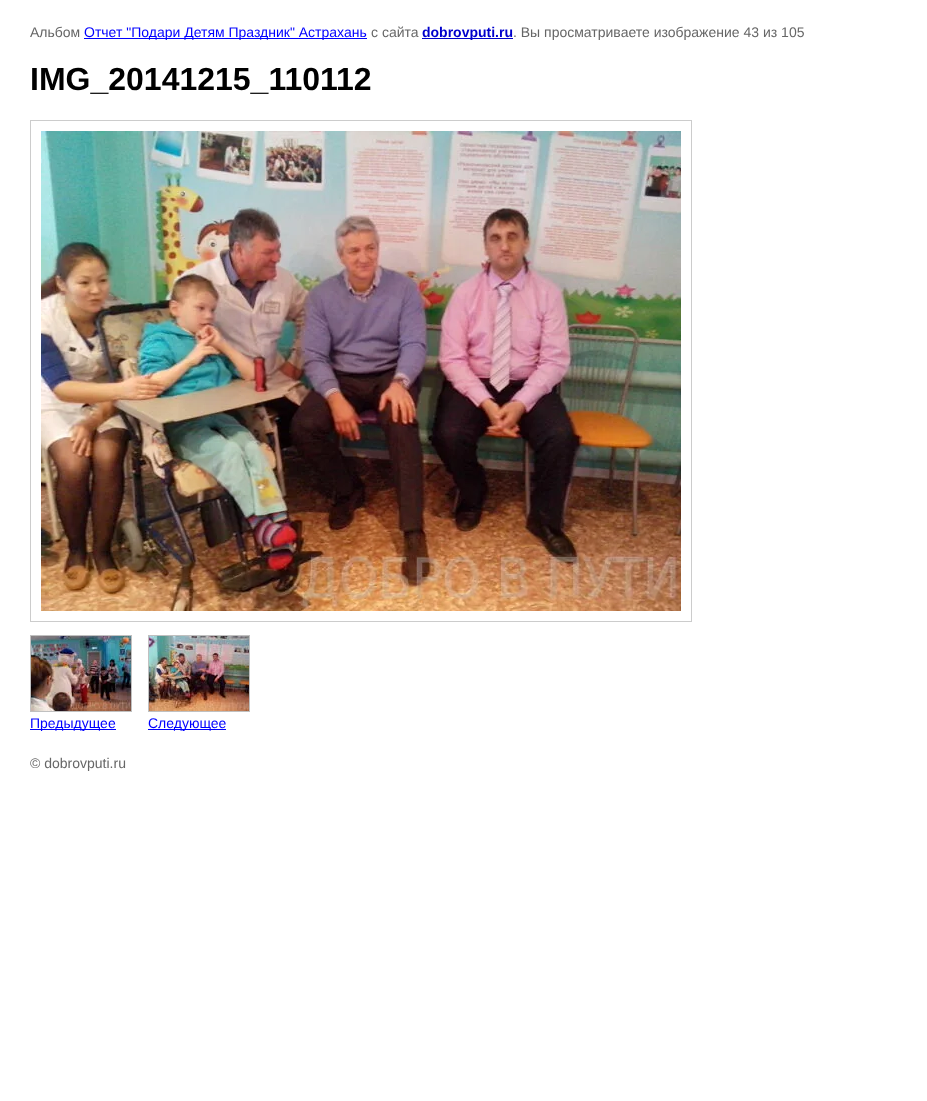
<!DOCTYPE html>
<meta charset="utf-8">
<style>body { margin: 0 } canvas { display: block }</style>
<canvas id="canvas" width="927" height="1101"></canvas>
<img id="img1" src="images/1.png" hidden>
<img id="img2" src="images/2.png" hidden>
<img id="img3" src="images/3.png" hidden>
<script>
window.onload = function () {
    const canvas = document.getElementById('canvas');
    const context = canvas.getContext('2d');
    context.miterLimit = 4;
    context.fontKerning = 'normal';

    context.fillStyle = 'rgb(255, 255, 255)';
    context.fillRect(0, 0, 927, 1101);
    context.fillStyle = 'rgb(0, 0, 255)';
    context.fillRect(84, 38, 283, 1);
    context.fillStyle = 'rgb(0, 0, 204)';
    context.fillRect(422, 38, 91, 1);
    context.strokeStyle = 'rgb(204, 204, 204)';
    context.strokeRect(30.5, 120.5, 661, 501);
    context.drawImage(document.getElementById('img1'), 41, 131, 640, 480);
    context.strokeStyle = 'rgb(192, 192, 192)';
    context.strokeRect(30.5, 635.5, 101, 76);
    context.drawImage(document.getElementById('img2'), 31, 636, 100, 75);
    context.fillStyle = 'rgb(0, 0, 255)';
    context.fillRect(30, 729, 86, 1);
    context.strokeRect(148.5, 635.5, 101, 76);
    context.drawImage(document.getElementById('img3'), 149, 636, 100, 75);
    context.fillRect(148, 729, 78, 1);
    context.font = '14px Liberation Sans';
    context.fillStyle = 'rgb(102, 102, 102)';
    context.fillText('Альбом', 30, 37);
    context.fillStyle = 'rgb(0, 0, 255)';
    context.fillText('Отчет "Подари Детям Праздник" Астрахань', 84, 37);
    context.fillStyle = 'rgb(102, 102, 102)';
    context.fillText('с сайта', 371, 37);
    context.font = 'bold 14px Liberation Sans';
    context.fillStyle = 'rgb(0, 0, 204)';
    context.fillText('dobrovputi.ru', 422, 37);
    context.font = '14px Liberation Sans';
    context.fillStyle = 'rgb(102, 102, 102)';
    context.fillText('. Вы просматриваете изображение 43 из 105', 513, 37);
    context.font = 'bold 32px Liberation Sans';
    context.fillStyle = 'rgb(0, 0, 0)';
    context.fillText('IMG_20141215_110112', 30, 90);
    context.font = '14px Liberation Sans';
    context.fillStyle = 'rgb(0, 0, 255)';
    context.fillText('Предыдущее', 30, 728);
    context.fillText('Следующее', 148, 728);
    context.fillStyle = 'rgb(102, 102, 102)';
    context.fillText('© dobrovputi.ru', 30, 768);
};
</script>
